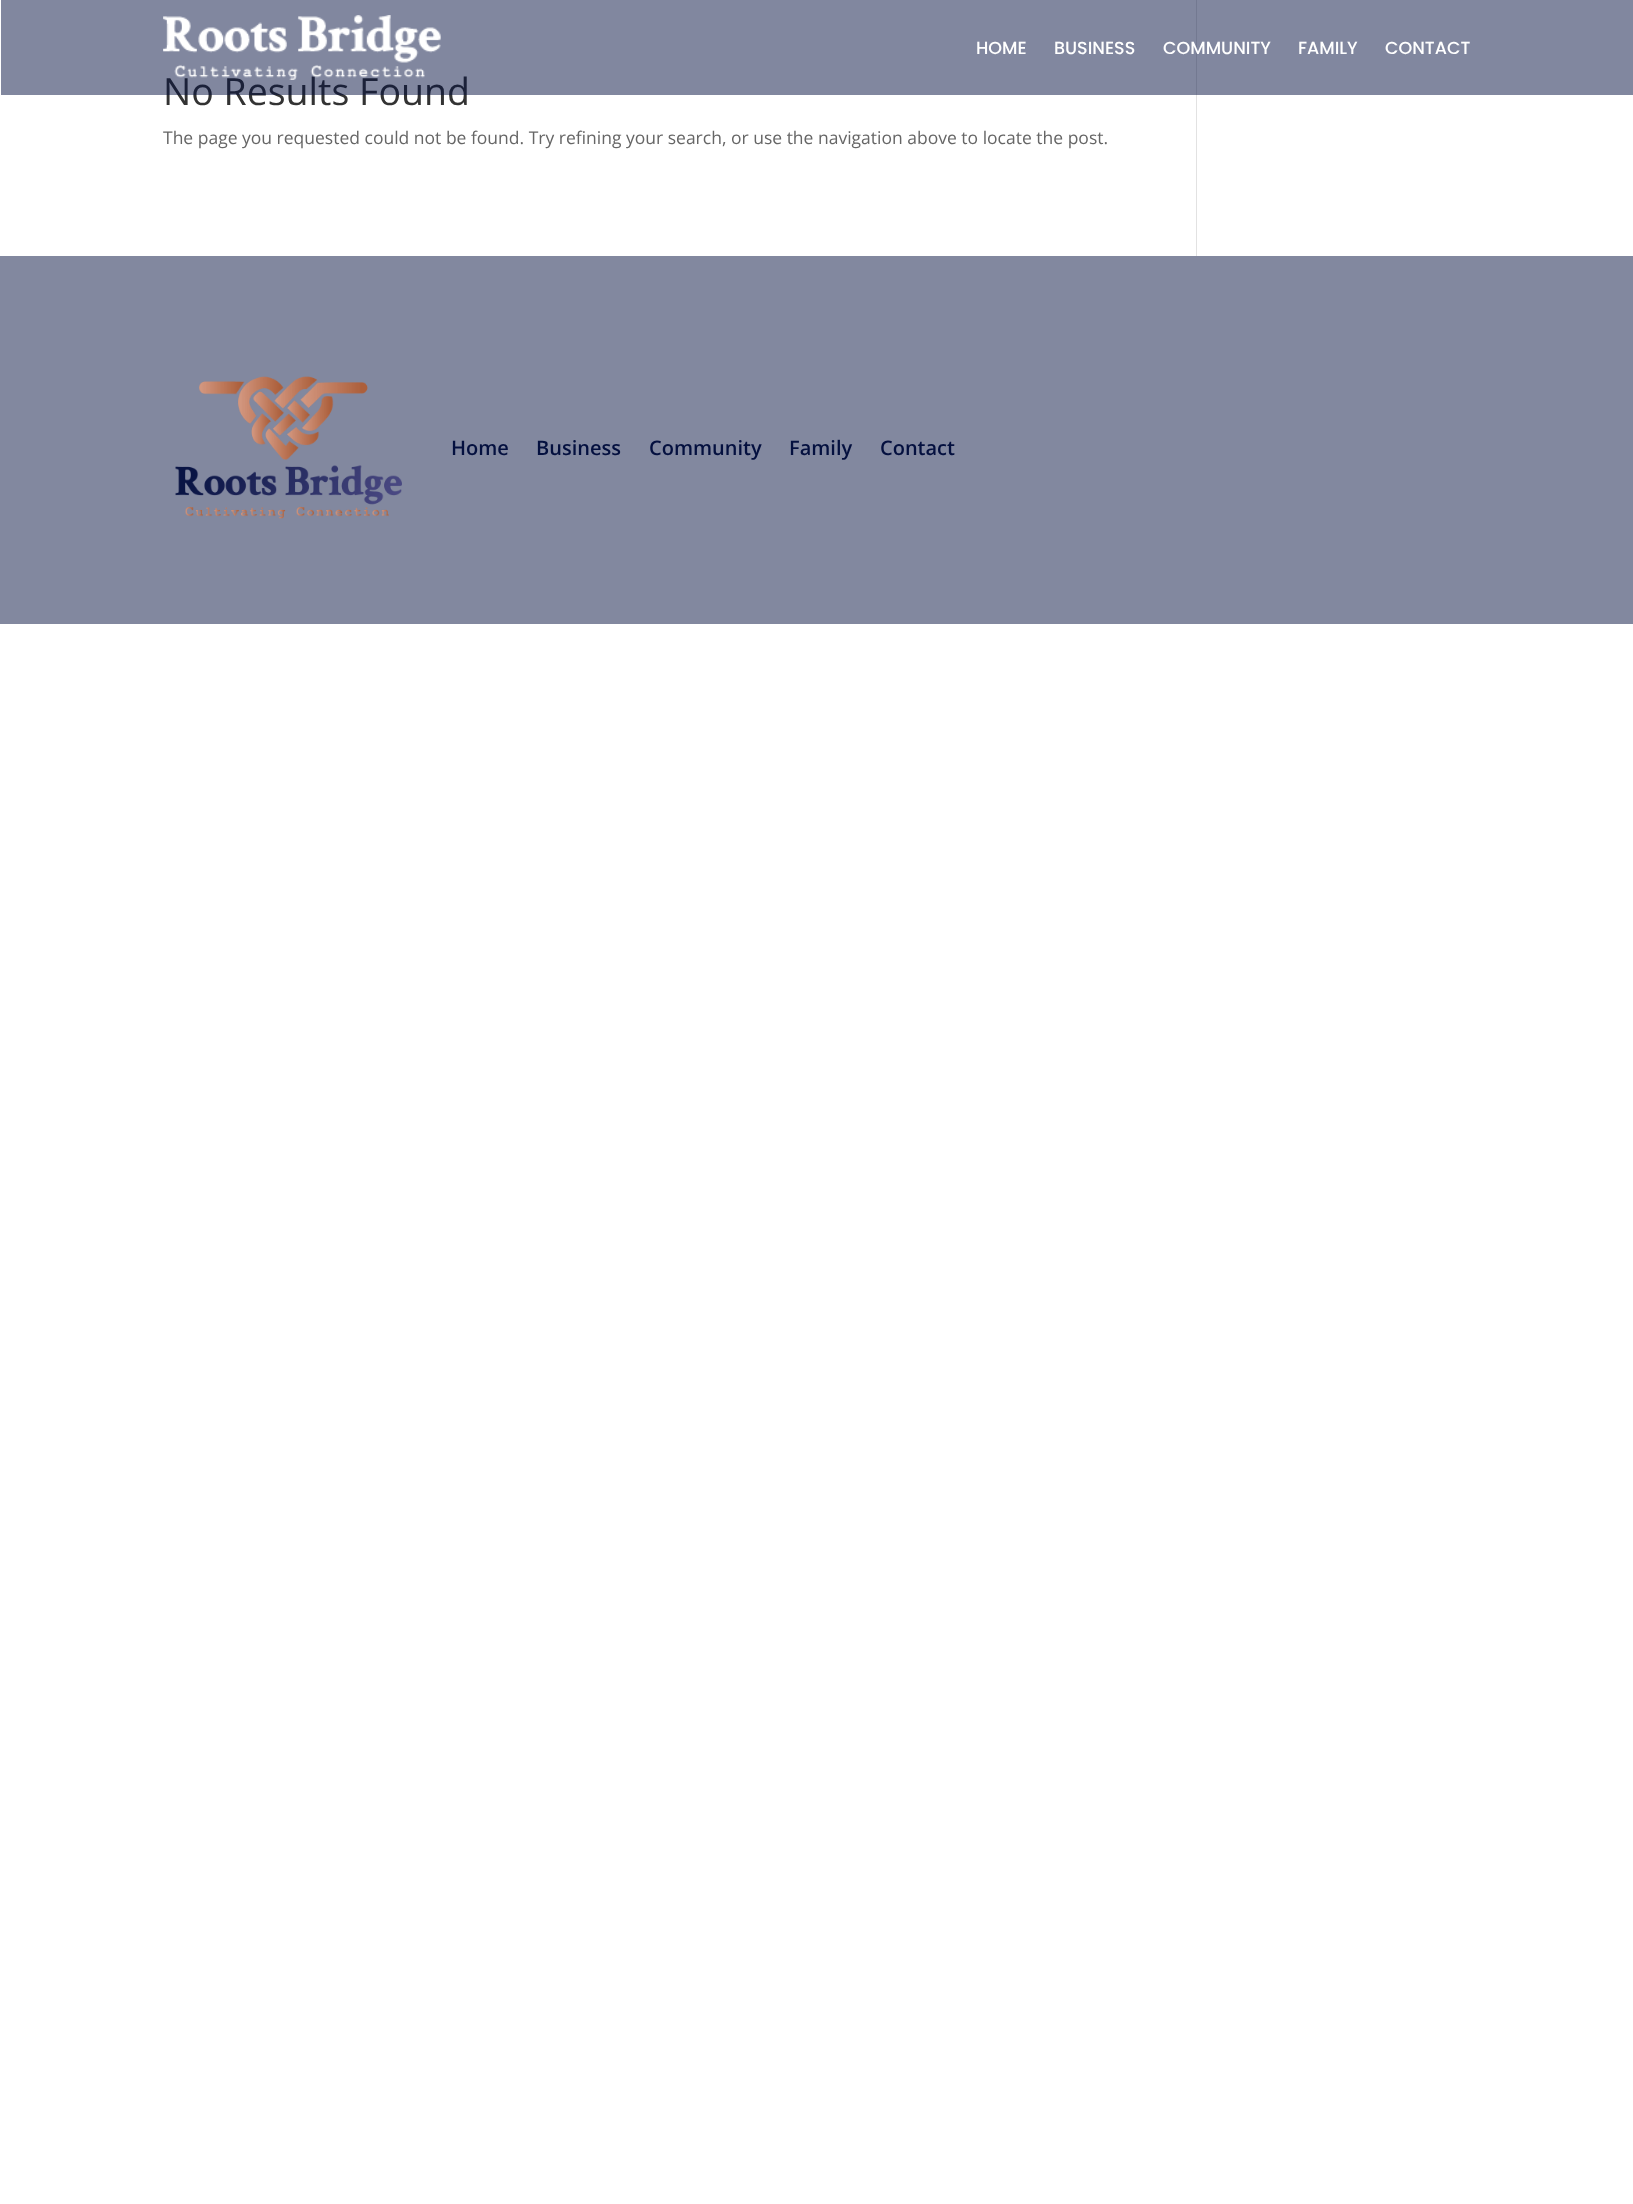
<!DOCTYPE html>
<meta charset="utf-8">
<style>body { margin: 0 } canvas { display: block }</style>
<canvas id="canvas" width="1633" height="2204"></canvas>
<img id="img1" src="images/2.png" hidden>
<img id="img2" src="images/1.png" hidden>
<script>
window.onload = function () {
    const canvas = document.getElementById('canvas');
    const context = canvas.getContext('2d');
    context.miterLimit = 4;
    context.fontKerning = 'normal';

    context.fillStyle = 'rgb(255, 255, 255)';
    context.fillRect(0, 0, 1633, 2204);
    context.fillStyle = 'rgb(226, 226, 226)';
    context.fillRect(1196, 0, 1, 256);
    context.fillStyle = 'rgb(130, 136, 159)';
    context.fillRect(0, 256, 1633, 368);
    context.drawImage(document.getElementById('img1'), 175, 376, 227, 143);
    context.font = '37.5px Open Sans';
    context.fillStyle = 'rgb(51, 51, 51)';
    context.fillText('No Results Found', 163, 105);
    context.fillStyle = 'rgba(4, 16, 63, 0.5)';
    context.fillRect(1, 0, 1632, 95);
    context.font = '500 17.5px Poppins';
    context.fillStyle = 'rgb(255, 255, 255)';
    context.fillText('CONTACT', 1385, 54);
    context.fillText('FAMILY', 1298, 54);
    context.fillText('COMMUNITY', 1163, 54);
    context.fillText('BUSINESS', 1054, 54);
    context.fillText('HOME', 976, 54);
    context.drawImage(document.getElementById('img2'), 163, 15, 278, 65);
    context.font = '17.5px Open Sans';
    context.fillStyle = 'rgb(102, 102, 102)';
    context.fillText('The page you requested could not be found. Try refining your search, or use the navigation above to locate the post.', 163, 144);
    context.font = '600 20px Open Sans';
    context.fillStyle = 'rgb(4, 16, 63)';
    context.fillText('Home', 451, 455);
    context.fillText('Business', 536, 455);
    context.fillText('Community', 649, 455);
    context.fillText('Family', 789, 455);
    context.fillText('Contact', 880, 455);
};
</script>
